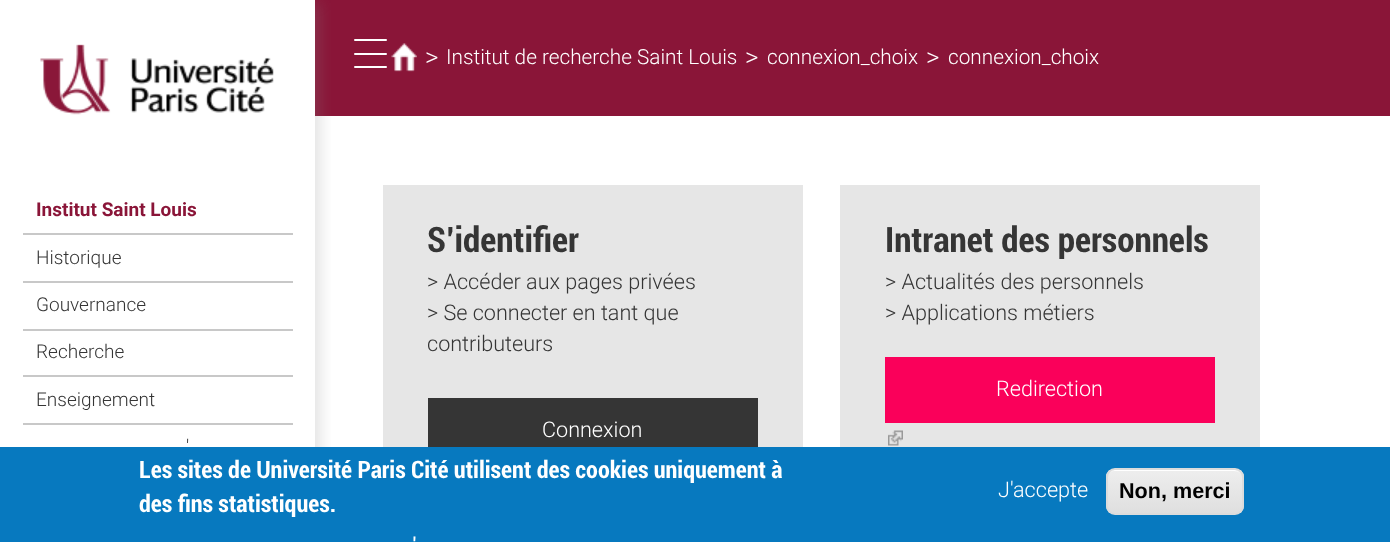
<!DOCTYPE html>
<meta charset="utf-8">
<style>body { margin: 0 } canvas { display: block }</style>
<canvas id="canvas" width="1390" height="542"></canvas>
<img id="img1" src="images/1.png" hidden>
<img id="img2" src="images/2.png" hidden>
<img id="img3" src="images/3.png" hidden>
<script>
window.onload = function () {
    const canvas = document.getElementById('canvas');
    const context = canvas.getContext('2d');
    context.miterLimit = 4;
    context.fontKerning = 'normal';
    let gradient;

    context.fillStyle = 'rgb(255, 255, 255)';
    context.fillRect(0, 0, 1390, 542);
    context.fillStyle = 'rgb(138, 21, 56)';
    context.fillRect(315, 0, 1075, 116);
    context.save();
    context.beginPath();
    context.rect(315, 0, 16, 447);
    context.clip();
    context.fillStyle = 'rgba(136, 136, 136, 0.25)';
    context.filter = 'blur(7.5px)';
    context.beginPath();
    context.rect(11, 3, 309, 537);
    context.fill();
    context.filter = 'none';
    context.restore();
    context.drawImage(document.getElementById('img1'), 40, 44, 234, 71);
    context.fillStyle = 'rgb(200, 200, 200)';
    context.fillRect(23, 233, 270, 2);
    context.fillRect(23, 281, 270, 2);
    context.fillRect(23, 329, 270, 2);
    context.fillRect(23, 375, 270, 2);
    context.fillRect(23, 423, 270, 2);
    context.fillStyle = 'rgb(255, 255, 255)';
    context.beginPath();
    context.roundRect(354, 39, 33, 2, 1);
    context.fill();
    context.beginPath();
    context.roundRect(354, 53, 33, 2, 1);
    context.fill();
    context.beginPath();
    context.roundRect(354, 66, 33, 2, 1);
    context.fill();
    context.drawImage(document.getElementById('img2'), 391, 43, 26, 29);
    context.fillStyle = 'rgb(230, 230, 230)';
    context.fillRect(383, 185, 420, 262);
    context.fillStyle = 'rgb(53, 53, 53)';
    context.fillRect(428, 398, 330, 49);
    context.fillStyle = 'rgb(230, 230, 230)';
    context.fillRect(840, 185, 420, 262);
    context.fillStyle = 'rgb(250, 0, 90)';
    context.fillRect(885, 357, 330, 66);
    context.drawImage(document.getElementById('img3'), 888, 430, 15, 16);
    context.fillStyle = 'rgb(7, 121, 191)';
    context.fillRect(0, 447, 1390, 95);
    context.save();
    context.beginPath();
    context.roundRect(1106, 468, 138, 47, 9);
    context.clip();
    gradient = context.createLinearGradient(1175, 470, 1175, 513);
    gradient.addColorStop(0.05, 'rgb(237, 237, 237)');
    gradient.addColorStop(1, 'rgb(223, 223, 223)');
    context.fillStyle = gradient;
    context.fillRect(1106, 470, 138, 43);
    context.restore();
    context.fillStyle = 'rgb(255, 255, 255)';
    context.beginPath();
    context.moveTo(1114, 471);
    context.lineTo(1234, 471);
    context.bezierCurveTo(1239, 471, 1242, 474, 1242, 478);
    context.bezierCurveTo(1242, 474, 1238, 470, 1234, 470);
    context.lineTo(1115, 470);
    context.bezierCurveTo(1111, 470, 1107, 474, 1107, 478);
    context.bezierCurveTo(1107, 474, 1110, 471, 1114, 471);
    context.closePath();
    context.fill();
    context.beginPath();
    context.roundRect(1107, 469, 136, 45, 8);
    context.strokeStyle = 'rgb(220, 220, 220)';
    context.lineWidth = 2;
    context.stroke();
    context.font = 'bold 19px "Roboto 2"';
    context.fillStyle = 'rgb(138, 21, 56)';
    context.fillText('Institut Saint Louis', 36, 216);
    context.font = '300 19px Roboto';
    context.fillStyle = 'rgb(53, 53, 53)';
    context.fillText('Historique', 36, 264);
    context.fillText('Gouvernance', 36, 311);
    context.fillText('Recherche', 36, 358);
    context.fillText('Enseignement', 36, 406);
    context.fillText('\'', 186, 453);
    context.font = '300 26px Roboto';
    context.fillStyle = 'rgb(255, 255, 255)';
    context.fillText('>', 425, 66);
    context.font = '300 20.75px Roboto';
    context.fillText('Institut de recherche Saint Louis', 446, 64);
    context.font = '300 26px Roboto';
    context.fillText('>', 745, 66);
    context.font = '300 20.75px Roboto';
    context.fillText('connexion_choix', 767, 64);
    context.font = '300 26px Roboto';
    context.fillText('>', 926, 66);
    context.font = '300 20.75px Roboto';
    context.fillText('connexion_choix', 948, 64);
    context.font = 'bold 35px Roboto';
    context.fillStyle = 'rgb(53, 53, 53)';
    context.fillText('S’identifier', 427, 252);
    context.font = '300 21.6px Roboto';
    context.fillText('> Accéder aux pages privées', 427, 289);
    context.fillText('> Se connecter en tant que', 427, 320);
    context.fillText('contributeurs', 427, 351);
    context.fillStyle = 'rgb(255, 255, 255)';
    context.fillText('Connexion', 542, 437);
    context.font = 'bold 35px Roboto';
    context.fillStyle = 'rgb(53, 53, 53)';
    context.fillText('Intranet des personnels', 885, 252);
    context.font = '300 21.6px Roboto';
    context.fillText('> Actualités des personnels', 885, 289);
    context.fillText('> Applications métiers', 885, 320);
    context.fillStyle = 'rgb(255, 255, 255)';
    context.fillText('Redirection', 996, 396);
    context.font = 'bold 24px Roboto';
    context.fillText('Les sites de Université Paris Cité utilisent des cookies uniquement à', 139, 478);
    context.fillText('des fins statistiques.', 139, 512);
    context.font = 'bold 18px "Roboto 2"';
    context.fillText('\'', 413, 550);
    context.font = '300 21.6px Roboto';
    context.fillText('J\'accepte', 998, 497);
    context.font = 'bold 21.6px Liberation Sans';
    context.fillStyle = 'rgb(0, 0, 0)';
    context.fillText('Non, merci', 1119, 498);
};
</script>
